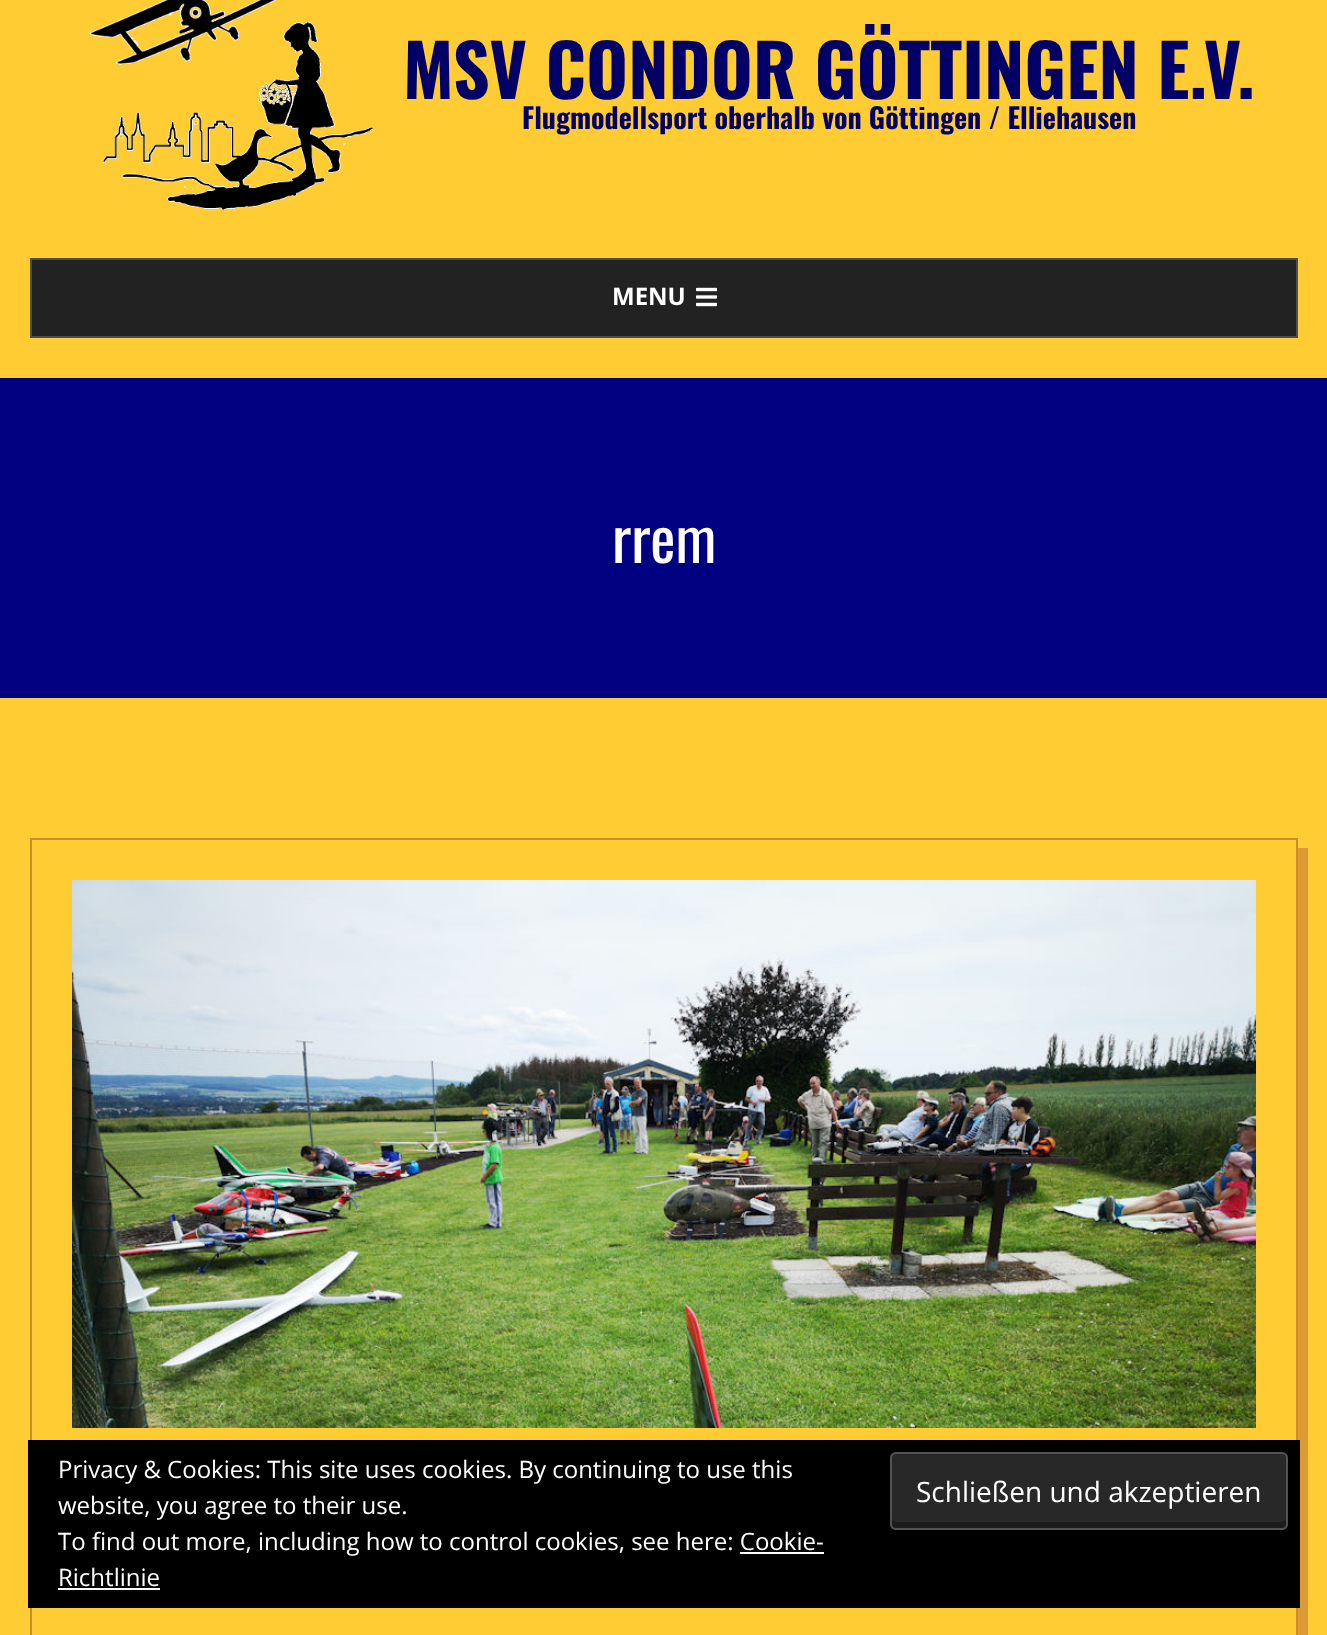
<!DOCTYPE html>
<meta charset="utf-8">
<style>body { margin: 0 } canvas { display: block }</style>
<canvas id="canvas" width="1327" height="1635"></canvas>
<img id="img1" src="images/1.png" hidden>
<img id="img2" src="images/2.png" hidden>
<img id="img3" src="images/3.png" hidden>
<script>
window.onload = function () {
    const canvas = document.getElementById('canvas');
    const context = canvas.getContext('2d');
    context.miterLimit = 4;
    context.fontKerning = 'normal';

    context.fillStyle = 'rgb(255, 205, 51)';
    context.fillRect(0, 0, 1327, 1635);
    context.drawImage(document.getElementById('img1'), 89, 0, 284, 210);
    context.fillStyle = 'rgb(34, 34, 34)';
    context.beginPath();
    context.rect(31, 259, 1266, 78);
    context.fill();
    context.strokeStyle = 'rgb(78, 78, 78)';
    context.lineWidth = 2;
    context.stroke();
    context.drawImage(document.getElementById('img2'), 696, 287, 21, 20);
    context.fillStyle = 'rgb(0, 0, 128)';
    context.fillRect(0, 378, 1327, 320);
    context.fillStyle = 'rgb(221, 153, 51)';
    context.beginPath();
    context.moveTo(40, 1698);
    context.lineTo(40, 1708);
    context.lineTo(1308, 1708);
    context.lineTo(1308, 848);
    context.lineTo(1298, 848);
    context.lineTo(1298, 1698);
    context.closePath();
    context.fill();
    context.strokeStyle = 'rgb(203, 140, 47)';
    context.strokeRect(31, 839, 1266, 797);
    context.drawImage(document.getElementById('img3'), 72, 880, 1184, 548);
    context.fillStyle = 'rgb(0, 0, 0)';
    context.fillRect(28, 1440, 1272, 168);
    context.fillStyle = 'rgb(40, 40, 40)';
    context.beginPath();
    context.roundRect(890, 1452, 398, 78, 6);
    context.fill();
    context.fillStyle = 'rgb(27, 27, 27)';
    context.beginPath();
    context.moveTo(892, 1518);
    context.bezierCurveTo(892, 1521, 891, 1526, 894, 1528);
    context.lineTo(1282, 1528);
    context.bezierCurveTo(1287, 1528, 1286, 1521, 1286, 1518);
    context.bezierCurveTo(1286, 1520, 1284, 1522, 1282, 1522);
    context.lineTo(896, 1522);
    context.bezierCurveTo(894, 1522, 892, 1520, 892, 1518);
    context.closePath();
    context.fill();
    context.beginPath();
    context.roundRect(891, 1453, 396, 76, 5);
    context.strokeStyle = 'rgb(83, 83, 83)';
    context.stroke();
    context.fillStyle = 'rgb(255, 255, 255)';
    context.fillRect(740, 1552, 84, 2);
    context.fillRect(58, 1588, 102, 2);
    context.font = 'bold 72px Oswald';
    context.fillStyle = 'rgb(0, 0, 102)';
    context.fillText('MSV CONDOR GÖTTINGEN E.V.', 403, 99);
    context.font = 'bold 28px Oswald';
    context.fillText('Flugmodellsport oberhalb von Göttingen / Elliehausen', 522, 129);
    context.font = 'bold 24px Open Sans';
    context.fillStyle = 'rgb(255, 255, 255)';
    context.fillText('MENU', 612, 305);
    context.font = '60px Oswald';
    context.fillText('rrem', 612, 563);
    context.font = '24px Open Sans';
    context.fillText('Privacy & Cookies: This site uses cookies. By continuing to use this', 58, 1478);
    context.fillText('website, you agree to their use.', 58, 1514);
    context.font = '28px Open Sans';
    context.fillText('Schließen und akzeptieren', 916, 1502);
    context.font = '24px Open Sans';
    context.fillText('To find out more, including how to control cookies, see here: Cookie-', 58, 1550);
    context.fillText('Richtlinie', 58, 1586);
};
</script>
